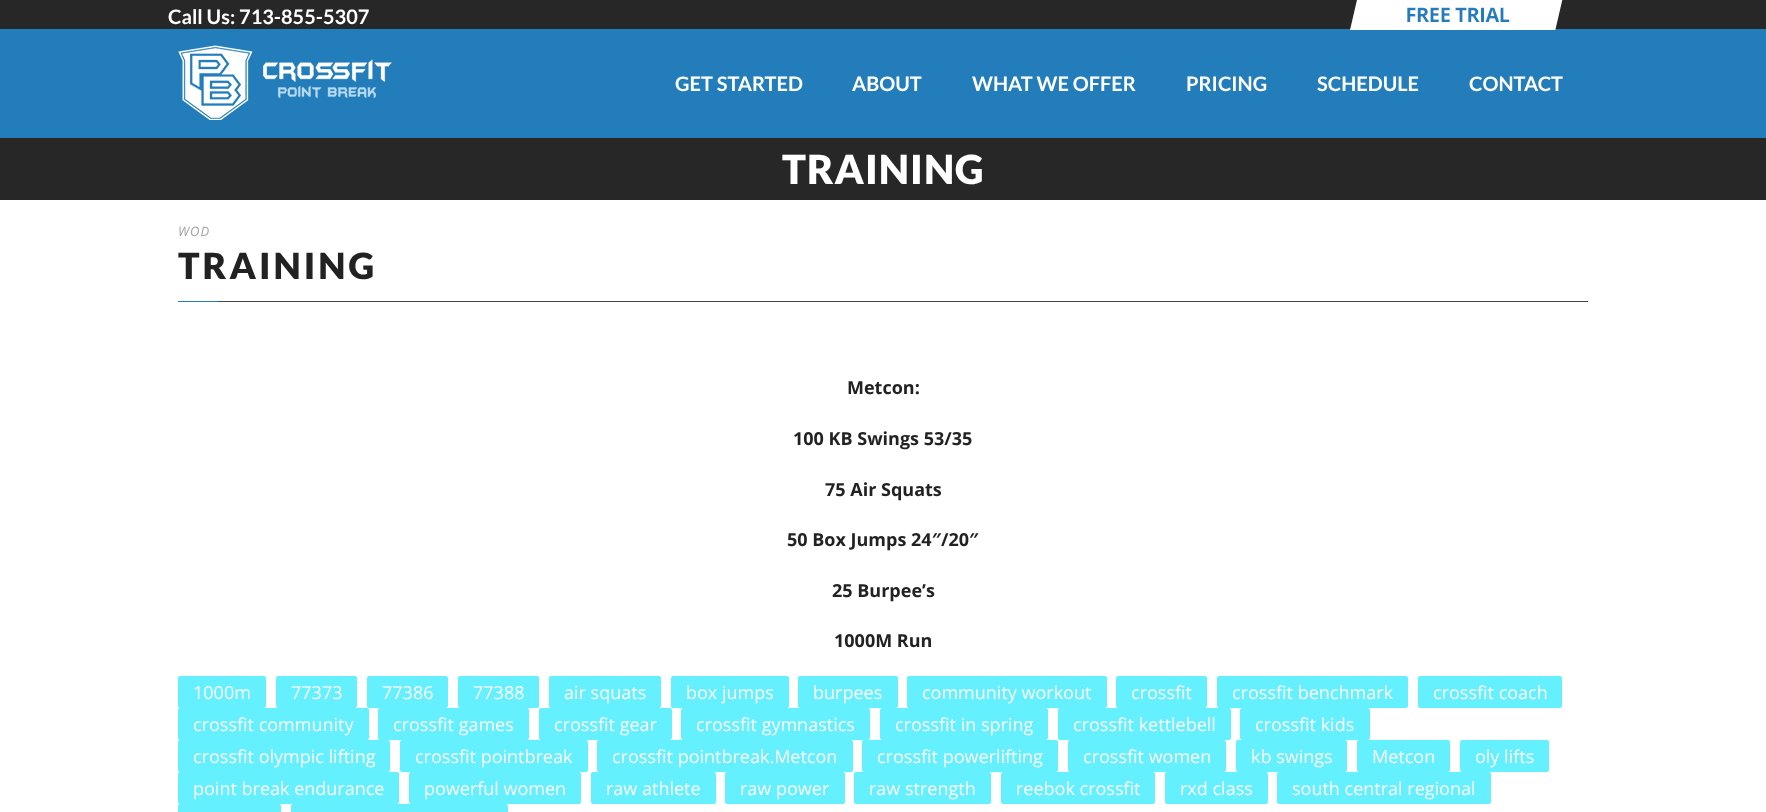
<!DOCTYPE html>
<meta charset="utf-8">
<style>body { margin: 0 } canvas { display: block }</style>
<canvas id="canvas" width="1766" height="812"></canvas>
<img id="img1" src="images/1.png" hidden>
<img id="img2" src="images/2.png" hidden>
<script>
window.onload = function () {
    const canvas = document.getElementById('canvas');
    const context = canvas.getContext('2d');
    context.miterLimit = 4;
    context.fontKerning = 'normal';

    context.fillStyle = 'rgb(255, 255, 255)';
    context.fillRect(0, 0, 1766, 812);
    context.fillStyle = 'rgb(39, 39, 39)';
    context.fillRect(0, 0, 1766, 29);
    context.fillStyle = 'rgb(34, 125, 186)';
    context.fillRect(0, 29, 1766, 109);
    context.drawImage(document.getElementById('img1'), 1350, 0, 213, 30);
    context.drawImage(document.getElementById('img2'), 178, 45, 214, 75);
    context.fillStyle = 'rgb(39, 39, 39)';
    context.fillRect(0, 138, 1766, 62);
    context.fillStyle = 'rgb(68, 68, 68)';
    context.fillRect(218, 301, 1370, 1);
    context.fillStyle = 'rgb(34, 125, 186)';
    context.fillRect(178, 301, 40, 1);
    context.fillStyle = 'rgb(101, 240, 255)';
    context.beginPath();
    context.roundRect(178, 676, 88, 32, 2);
    context.fill();
    context.beginPath();
    context.roundRect(276, 676, 81, 32, 2);
    context.fill();
    context.beginPath();
    context.roundRect(367, 676, 81, 32, 2);
    context.fill();
    context.beginPath();
    context.roundRect(458, 676, 81, 32, 2);
    context.fill();
    context.beginPath();
    context.roundRect(549, 676, 112, 32, 2);
    context.fill();
    context.beginPath();
    context.roundRect(671, 676, 118, 32, 2);
    context.fill();
    context.beginPath();
    context.roundRect(798, 676, 100, 32, 2);
    context.fill();
    context.beginPath();
    context.roundRect(907, 676, 200, 32, 2);
    context.fill();
    context.beginPath();
    context.roundRect(1116, 676, 91, 32, 2);
    context.fill();
    context.beginPath();
    context.roundRect(1217, 676, 191, 32, 2);
    context.fill();
    context.beginPath();
    context.roundRect(1418, 676, 144, 32, 2);
    context.fill();
    context.beginPath();
    context.roundRect(178, 708, 191, 32, 2);
    context.fill();
    context.beginPath();
    context.roundRect(378, 708, 151, 32, 2);
    context.fill();
    context.beginPath();
    context.roundRect(539, 708, 133, 32, 2);
    context.fill();
    context.beginPath();
    context.roundRect(681, 708, 189, 32, 2);
    context.fill();
    context.beginPath();
    context.roundRect(880, 708, 168, 32, 2);
    context.fill();
    context.beginPath();
    context.roundRect(1058, 708, 173, 32, 2);
    context.fill();
    context.beginPath();
    context.roundRect(1240, 708, 130, 32, 2);
    context.fill();
    context.beginPath();
    context.roundRect(178, 740, 212, 32, 2);
    context.fill();
    context.beginPath();
    context.roundRect(400, 740, 188, 32, 2);
    context.fill();
    context.beginPath();
    context.roundRect(597, 740, 256, 32, 2);
    context.fill();
    context.beginPath();
    context.roundRect(862, 740, 196, 32, 2);
    context.fill();
    context.beginPath();
    context.roundRect(1068, 740, 158, 32, 2);
    context.fill();
    context.beginPath();
    context.roundRect(1236, 740, 111, 32, 2);
    context.fill();
    context.beginPath();
    context.roundRect(1357, 740, 93, 32, 2);
    context.fill();
    context.beginPath();
    context.roundRect(1460, 740, 89, 32, 2);
    context.fill();
    context.beginPath();
    context.roundRect(178, 772, 221, 32, 2);
    context.fill();
    context.beginPath();
    context.roundRect(409, 772, 172, 32, 2);
    context.fill();
    context.beginPath();
    context.roundRect(591, 772, 125, 32, 2);
    context.fill();
    context.beginPath();
    context.roundRect(725, 772, 120, 32, 2);
    context.fill();
    context.beginPath();
    context.roundRect(854, 772, 137, 32, 2);
    context.fill();
    context.beginPath();
    context.roundRect(1001, 772, 154, 32, 2);
    context.fill();
    context.beginPath();
    context.roundRect(1165, 772, 103, 32, 2);
    context.fill();
    context.beginPath();
    context.roundRect(1277, 772, 214, 32, 2);
    context.fill();
    context.beginPath();
    context.roundRect(178, 804, 103, 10, 2);
    context.fill();
    context.beginPath();
    context.roundRect(291, 804, 217, 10, 2);
    context.fill();
    context.font = 'bold 20px Lato';
    context.fillStyle = 'rgb(255, 255, 255)';
    context.fillText('Call Us: 713-855-5307', 168, 24);
    context.fillText('GET STARTED', 675, 91);
    context.fillText('ABOUT', 852, 91);
    context.fillText('WHAT WE OFFER', 972, 91);
    context.fillText('PRICING', 1186, 91);
    context.fillText('SCHEDULE', 1317, 91);
    context.fillText('CONTACT', 1469, 91);
    context.letterSpacing = '1px';
    context.font = '900 40px Lato';
    context.fillText('TRAINING', 782, 184);
    context.font = 'italic 13px Open Sans';
    context.fillStyle = 'rgb(163, 163, 163)';
    context.fillText('WOD', 178, 236);
    context.letterSpacing = '3px';
    context.font = '900 36px Lato';
    context.fillStyle = 'rgb(34, 34, 34)';
    context.fillText('TRAINING', 178, 279);
    context.letterSpacing = '0px';
    context.font = 'bold 18px Open Sans';
    context.fillText('Metcon:', 847, 394);
    context.fillText('100 KB Swings 53/35', 793, 445);
    context.fillText('75 Air Squats', 825, 496);
    context.fillText('50 Box Jumps 24″/20″', 787, 546);
    context.fillText('25 Burpee’s', 832, 597);
    context.fillText('1000M Run', 834, 647);
    context.font = '18px Open Sans';
    context.fillStyle = 'rgb(255, 255, 255)';
    context.fillText('1000m', 193, 699);
    context.fillText('77373', 291, 699);
    context.fillText('77386', 382, 699);
    context.fillText('77388', 473, 699);
    context.fillText('air squats', 564, 699);
    context.fillText('box jumps', 686, 699);
    context.fillText('burpees', 813, 699);
    context.fillText('community workout', 922, 699);
    context.fillText('crossfit', 1131, 699);
    context.fillText('crossfit benchmark', 1232, 699);
    context.fillText('crossfit coach', 1433, 699);
    context.fillText('crossfit community', 193, 731);
    context.fillText('crossfit games', 393, 731);
    context.fillText('crossfit gear', 554, 731);
    context.fillText('crossfit gymnastics', 696, 731);
    context.fillText('crossfit in spring', 895, 731);
    context.fillText('crossfit kettlebell', 1073, 731);
    context.fillText('crossfit kids', 1255, 731);
    context.fillText('crossfit olympic lifting', 193, 763);
    context.fillText('crossfit pointbreak', 415, 763);
    context.fillText('crossfit pointbreak.Metcon', 612, 763);
    context.fillText('crossfit powerlifting', 877, 763);
    context.fillText('crossfit women', 1083, 763);
    context.fillText('kb swings', 1251, 763);
    context.fillText('Metcon', 1372, 763);
    context.fillText('oly lifts', 1475, 763);
    context.fillText('point break endurance', 193, 795);
    context.fillText('powerful women', 424, 795);
    context.fillText('raw athlete', 606, 795);
    context.fillText('raw power', 740, 795);
    context.fillText('raw strength', 869, 795);
    context.fillText('reebok crossfit', 1016, 795);
    context.fillText('rxd class', 1180, 795);
    context.fillText('south central regional', 1292, 795);
};
</script>
